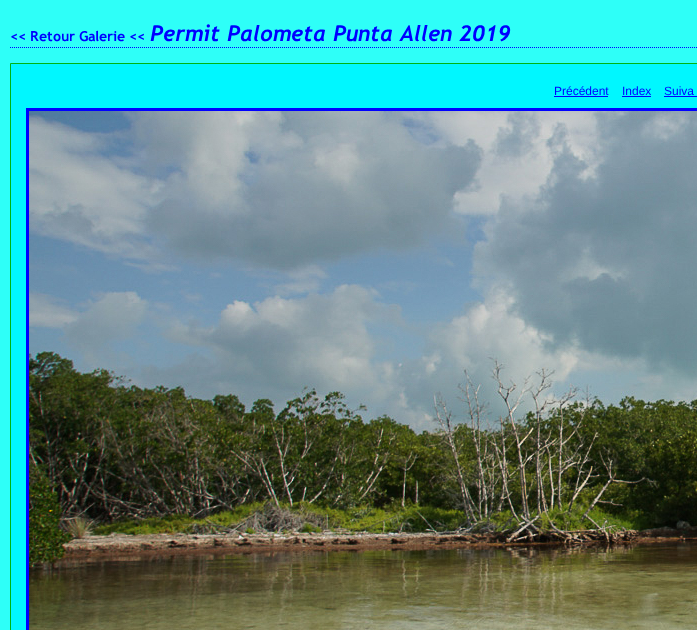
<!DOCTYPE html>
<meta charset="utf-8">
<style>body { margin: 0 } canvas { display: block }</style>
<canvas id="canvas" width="697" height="630"></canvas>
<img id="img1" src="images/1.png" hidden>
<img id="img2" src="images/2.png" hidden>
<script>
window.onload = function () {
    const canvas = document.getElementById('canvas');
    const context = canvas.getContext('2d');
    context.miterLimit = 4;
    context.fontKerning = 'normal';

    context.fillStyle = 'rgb(46, 255, 248)';
    context.fillRect(0, 0, 697, 630);
    context.drawImage(document.getElementById('img1'), 11, 24, 500, 18);
    context.beginPath();
    context.moveTo(10, 47.5);
    context.lineTo(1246, 47.5);
    context.strokeStyle = 'rgb(0, 0, 255)';
    context.setLineDash([1, 1]);
    context.stroke();
    context.fillStyle = 'rgb(0, 247, 255)';
    context.beginPath();
    context.rect(10.5, 63.5, 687, 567);
    context.fill();
    context.strokeStyle = 'rgb(0, 179, 18)';
    context.setLineDash([]);
    context.stroke();
    context.fillStyle = 'rgb(0, 0, 255)';
    context.fillRect(554, 96, 54, 1);
    context.fillRect(622, 96, 29, 1);
    context.fillRect(664, 96, 33, 1);
    context.strokeStyle = 'rgb(0, 0, 255)';
    context.lineWidth = 3;
    context.strokeRect(27.5, 109.5, 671, 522);
    context.drawImage(document.getElementById('img2'), 29, 111, 668, 519);
    context.font = '12px Liberation Sans';
    context.fillText('Précédent', 554, 95);
    context.fillText('Index', 622, 95);
    context.fillText('Suiva', 664, 95);
};
</script>
